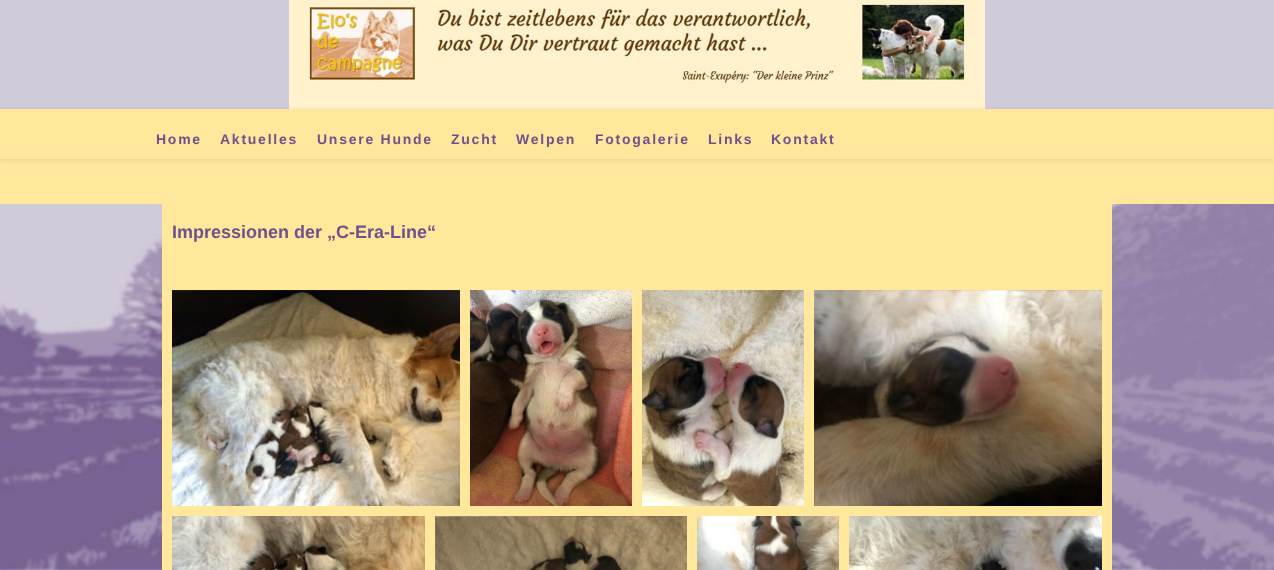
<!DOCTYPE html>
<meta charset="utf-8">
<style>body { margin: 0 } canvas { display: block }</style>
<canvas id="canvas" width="1274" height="570"></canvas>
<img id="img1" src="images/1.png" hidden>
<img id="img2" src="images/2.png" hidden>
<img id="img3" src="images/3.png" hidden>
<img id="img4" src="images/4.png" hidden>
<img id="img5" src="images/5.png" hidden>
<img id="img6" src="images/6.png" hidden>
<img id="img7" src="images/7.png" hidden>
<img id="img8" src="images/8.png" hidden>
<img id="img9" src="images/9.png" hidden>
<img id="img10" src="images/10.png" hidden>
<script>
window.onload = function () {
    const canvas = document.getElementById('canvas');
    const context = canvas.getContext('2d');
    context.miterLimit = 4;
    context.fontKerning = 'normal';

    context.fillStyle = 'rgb(255, 255, 255)';
    context.fillRect(0, 0, 1274, 570);
    context.drawImage(document.getElementById('img1'), 0, 0, 1274, 570);
    context.drawImage(document.getElementById('img2'), 289, 0, 696, 109);
    context.fillStyle = 'rgb(255, 231, 156)';
    context.fillRect(0, 159, 1274, 45);
    context.fillStyle = 'rgba(0, 0, 0, 0.1)';
    context.filter = 'blur(2.5px)';
    context.beginPath();
    context.rect(0, 110, 1274, 50);
    context.fill();
    context.filter = 'none';
    context.fillStyle = 'rgb(255, 231, 156)';
    context.fillRect(0, 109, 1274, 50);
    context.fillRect(162, 204, 950, 366);
    context.drawImage(document.getElementById('img3'), 172, 290, 288, 216);
    context.drawImage(document.getElementById('img4'), 470, 290, 162, 216);
    context.drawImage(document.getElementById('img5'), 642, 290, 162, 216);
    context.drawImage(document.getElementById('img6'), 814, 290, 288, 216);
    context.drawImage(document.getElementById('img7'), 172, 516, 253, 54);
    context.drawImage(document.getElementById('img8'), 435, 516, 252, 54);
    context.drawImage(document.getElementById('img9'), 697, 516, 142, 54);
    context.drawImage(document.getElementById('img10'), 849, 516, 253, 54);
    context.letterSpacing = '1.75px';
    context.font = 'bold 14px Liberation Sans';
    context.fillStyle = 'rgb(112, 81, 140)';
    context.fillText('Home', 156, 144);
    context.fillText('Aktuelles', 220, 144);
    context.fillText('Unsere Hunde', 317, 144);
    context.fillText('Zucht', 451, 144);
    context.fillText('Welpen', 516, 144);
    context.fillText('Fotogalerie', 595, 144);
    context.fillText('Links', 708, 144);
    context.fillText('Kontakt', 771, 144);
    context.letterSpacing = '0px';
    context.font = 'bold 18px Liberation Sans';
    context.fillText('Impressionen der „C-Era-Line“', 172, 238);
};
</script>
